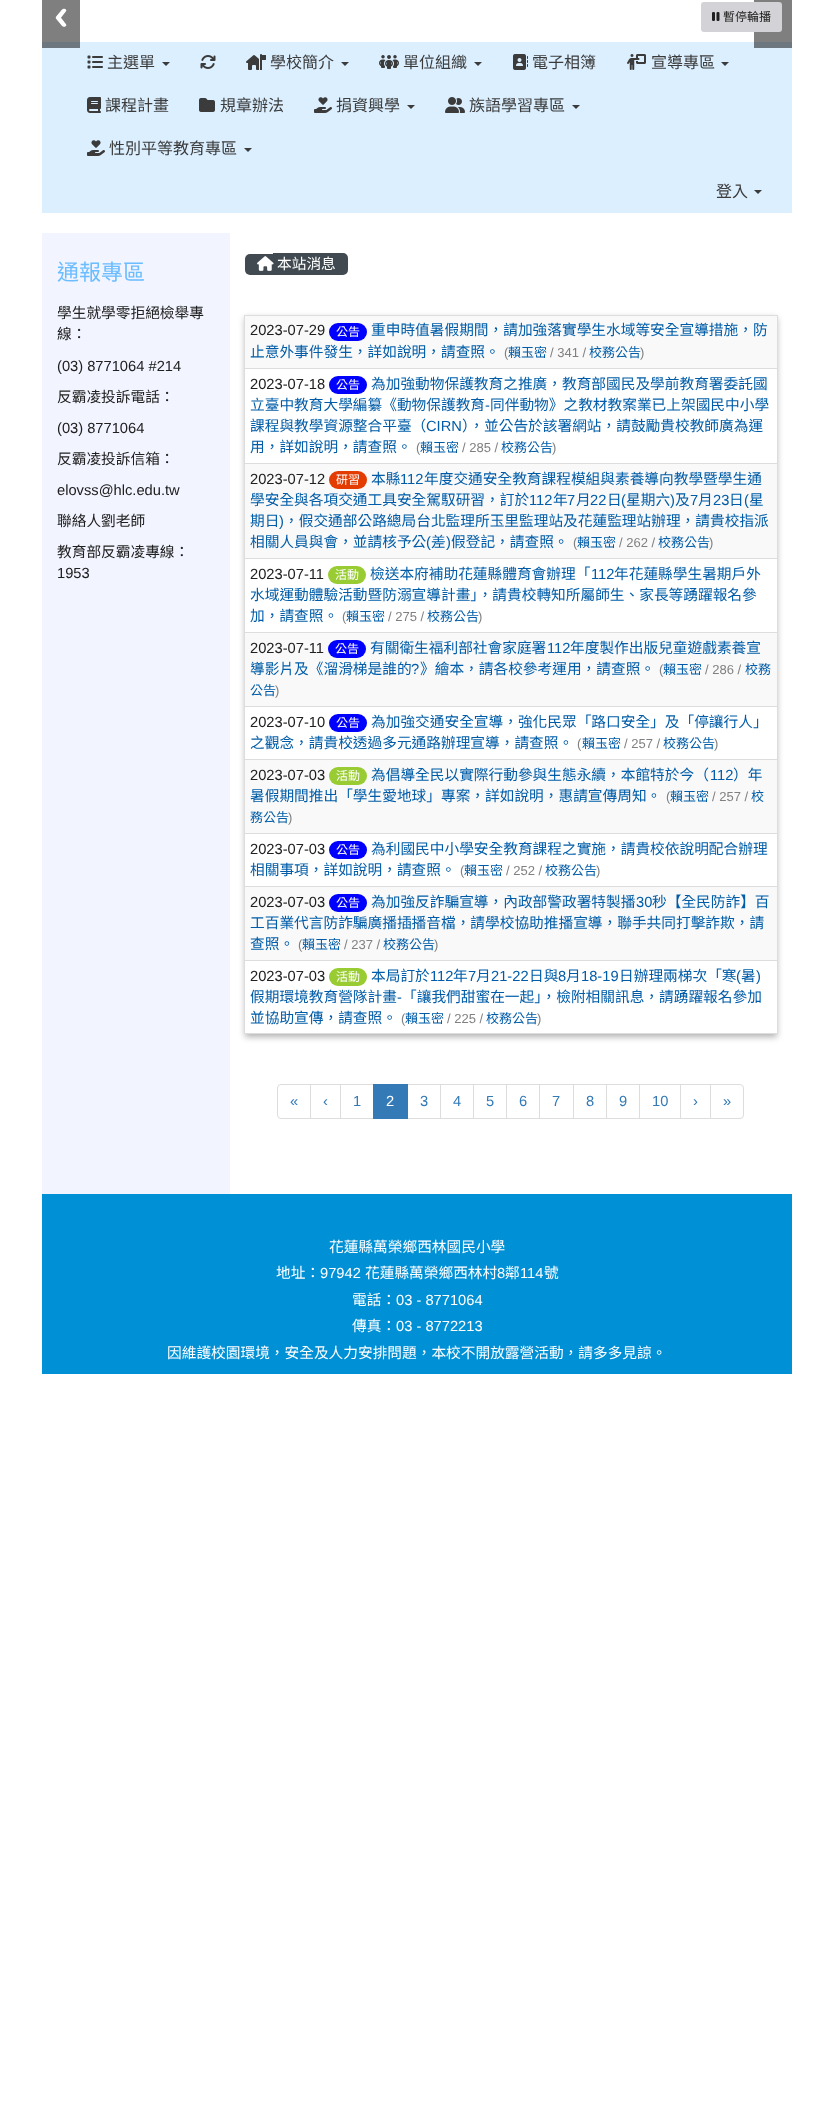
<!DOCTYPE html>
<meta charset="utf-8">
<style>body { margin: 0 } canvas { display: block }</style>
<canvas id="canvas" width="834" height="2117"></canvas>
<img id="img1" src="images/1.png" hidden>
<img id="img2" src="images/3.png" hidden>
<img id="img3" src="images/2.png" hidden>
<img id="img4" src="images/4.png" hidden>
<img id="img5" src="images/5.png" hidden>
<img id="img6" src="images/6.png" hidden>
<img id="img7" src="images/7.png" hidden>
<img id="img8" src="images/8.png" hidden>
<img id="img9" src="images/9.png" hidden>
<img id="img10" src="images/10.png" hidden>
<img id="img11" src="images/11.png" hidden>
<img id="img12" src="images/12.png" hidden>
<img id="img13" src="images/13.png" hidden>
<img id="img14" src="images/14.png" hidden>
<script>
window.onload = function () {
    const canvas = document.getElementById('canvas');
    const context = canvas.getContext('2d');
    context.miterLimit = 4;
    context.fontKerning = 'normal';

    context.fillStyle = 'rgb(255, 255, 255)';
    context.fillRect(0, 0, 834, 2117);
    context.fillStyle = 'rgb(219, 239, 255)';
    context.fillRect(42, 42, 750, 171);
    context.drawImage(document.getElementById('img1'), 42, 0, 38, 48);
    context.drawImage(document.getElementById('img2'), 754, 0, 38, 48);
    context.fillStyle = 'rgb(211, 210, 214)';
    context.beginPath();
    context.roundRect(701, 2, 81, 30, 3);
    context.fill();
    context.drawImage(document.getElementById('img3'), 712, 12, 8, 9);
    context.drawImage(document.getElementById('img4'), 87, 55, 16, 14);
    context.fillStyle = 'rgb(59, 59, 59)';
    context.beginPath();
    context.moveTo(162, 62);
    context.lineTo(170, 62);
    context.lineTo(166, 66);
    context.closePath();
    context.fill();
    context.drawImage(document.getElementById('img5'), 200, 55, 16, 14);
    context.drawImage(document.getElementById('img6'), 246, 54, 20, 16);
    context.beginPath();
    context.moveTo(341, 62);
    context.lineTo(349, 62);
    context.lineTo(345, 66);
    context.closePath();
    context.fill();
    context.drawImage(document.getElementById('img7'), 379, 55, 20, 14);
    context.beginPath();
    context.moveTo(474, 62);
    context.lineTo(482, 62);
    context.lineTo(478, 66);
    context.closePath();
    context.fill();
    context.drawImage(document.getElementById('img8'), 513, 54, 15, 16);
    context.drawImage(document.getElementById('img9'), 627, 54, 19, 16);
    context.beginPath();
    context.moveTo(721, 62);
    context.lineTo(729, 62);
    context.lineTo(725, 66);
    context.closePath();
    context.fill();
    context.drawImage(document.getElementById('img10'), 87, 97, 14, 16);
    context.drawImage(document.getElementById('img11'), 199, 98, 16, 14);
    context.drawImage(document.getElementById('img12'), 314, 97, 18, 16);
    context.beginPath();
    context.moveTo(407, 105);
    context.lineTo(415, 105);
    context.lineTo(411, 109);
    context.closePath();
    context.fill();
    context.drawImage(document.getElementById('img13'), 445, 97, 20, 16);
    context.beginPath();
    context.moveTo(572, 105);
    context.lineTo(580, 105);
    context.lineTo(576, 109);
    context.closePath();
    context.fill();
    context.drawImage(document.getElementById('img12'), 87, 140, 18, 16);
    context.beginPath();
    context.moveTo(244, 148);
    context.lineTo(252, 148);
    context.lineTo(248, 152);
    context.closePath();
    context.fill();
    context.beginPath();
    context.moveTo(754, 190);
    context.lineTo(762, 190);
    context.lineTo(758, 194);
    context.closePath();
    context.fill();
    context.fillStyle = 'rgb(242, 244, 255)';
    context.fillRect(42, 233, 188, 961);
    context.fillStyle = 'rgb(64, 74, 80)';
    context.beginPath();
    context.roundRect(245, 254, 28, 21, [5, 0, 0, 5]);
    context.fill();
    context.beginPath();
    context.roundRect(273, 253, 75, 22, [0, 5, 5, 0]);
    context.fill();
    context.drawImage(document.getElementById('img14'), 257, 256, 17, 15);
    context.save();
    context.beginPath();
    context.moveTo(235, 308);
    context.lineTo(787, 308);
    context.lineTo(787, 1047);
    context.lineTo(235, 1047);
    context.closePath();
    context.moveTo(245, 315);
    context.lineTo(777, 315);
    context.lineTo(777, 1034);
    context.lineTo(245, 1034);
    context.closePath();
    context.clip('evenodd');
    context.fillStyle = 'rgba(0, 0, 0, 0.3)';
    context.filter = 'blur(3px)';
    context.beginPath();
    context.rect(245, 318, 532, 719);
    context.fill();
    context.filter = 'none';
    context.restore();
    context.fillStyle = 'rgb(249, 249, 249)';
    context.fillRect(245, 316, 532, 52);
    context.fillStyle = 'rgb(221, 221, 221)';
    context.fillRect(244, 315, 534, 1);
    context.fillRect(777, 315, 1, 8);
    context.fillRect(244, 315, 1, 8);
    context.fillStyle = 'rgb(0, 0, 255)';
    context.beginPath();
    context.roundRect(329, 323, 38, 18, 9);
    context.fill();
    context.fillStyle = 'rgb(221, 221, 221)';
    context.fillRect(244, 368, 534, 1);
    context.fillStyle = 'rgb(0, 0, 255)';
    context.beginPath();
    context.roundRect(329, 376, 38, 18, 9);
    context.fill();
    context.fillStyle = 'rgb(249, 249, 249)';
    context.fillRect(245, 464, 532, 94);
    context.fillStyle = 'rgb(221, 221, 221)';
    context.fillRect(244, 463, 534, 1);
    context.fillStyle = 'rgb(227, 59, 0)';
    context.beginPath();
    context.roundRect(329, 471, 38, 18, 9);
    context.fill();
    context.fillStyle = 'rgb(221, 221, 221)';
    context.fillRect(244, 558, 534, 1);
    context.fillStyle = 'rgb(153, 204, 51)';
    context.beginPath();
    context.roundRect(328, 566, 38, 18, 9);
    context.fill();
    context.fillStyle = 'rgb(249, 249, 249)';
    context.fillRect(245, 633, 532, 73);
    context.fillStyle = 'rgb(221, 221, 221)';
    context.fillRect(244, 632, 534, 1);
    context.fillStyle = 'rgb(0, 0, 255)';
    context.beginPath();
    context.roundRect(328, 640, 38, 18, 9);
    context.fill();
    context.fillStyle = 'rgb(221, 221, 221)';
    context.fillRect(244, 706, 534, 1);
    context.fillStyle = 'rgb(0, 0, 255)';
    context.beginPath();
    context.roundRect(329, 714, 38, 18, 9);
    context.fill();
    context.fillStyle = 'rgb(249, 249, 249)';
    context.fillRect(245, 760, 532, 73);
    context.fillStyle = 'rgb(221, 221, 221)';
    context.fillRect(244, 759, 534, 1);
    context.fillStyle = 'rgb(153, 204, 51)';
    context.beginPath();
    context.roundRect(329, 767, 38, 18, 9);
    context.fill();
    context.fillStyle = 'rgb(221, 221, 221)';
    context.fillRect(244, 833, 534, 1);
    context.fillStyle = 'rgb(0, 0, 255)';
    context.beginPath();
    context.roundRect(329, 841, 38, 18, 9);
    context.fill();
    context.fillStyle = 'rgb(249, 249, 249)';
    context.fillRect(245, 887, 532, 73);
    context.fillStyle = 'rgb(221, 221, 221)';
    context.fillRect(244, 886, 534, 1);
    context.fillStyle = 'rgb(0, 0, 255)';
    context.beginPath();
    context.roundRect(329, 894, 38, 18, 9);
    context.fill();
    context.fillStyle = 'rgb(221, 221, 221)';
    context.fillRect(244, 960, 534, 1);
    context.fillRect(777, 1032, 1, 2);
    context.fillRect(244, 1033, 534, 1);
    context.fillRect(244, 1032, 1, 2);
    context.fillStyle = 'rgb(153, 204, 51)';
    context.beginPath();
    context.roundRect(329, 968, 38, 18, 9);
    context.fill();
    context.beginPath();
    context.roundRect(277.5, 1084.5, 33, 34, [3.5, 0, 0, 3.5]);
    context.strokeStyle = 'rgb(221, 221, 221)';
    context.stroke();
    context.strokeRect(310.5, 1084.5, 30, 34);
    context.strokeRect(340.5, 1084.5, 33, 34);
    context.strokeRect(407.5, 1084.5, 33, 34);
    context.fillStyle = 'rgb(51, 122, 183)';
    context.fillRect(373, 1084, 35, 35);
    context.strokeRect(440.5, 1084.5, 33, 34);
    context.strokeRect(473.5, 1084.5, 33, 34);
    context.strokeRect(506.5, 1084.5, 33, 34);
    context.strokeRect(539.5, 1084.5, 34, 34);
    context.strokeRect(573.5, 1084.5, 33, 34);
    context.strokeRect(606.5, 1084.5, 33, 34);
    context.strokeRect(639.5, 1084.5, 41, 34);
    context.strokeRect(680.5, 1084.5, 30, 34);
    context.fillStyle = 'rgb(255, 255, 255)';
    context.beginPath();
    context.roundRect(710.5, 1084.5, 33, 34, [0, 3.5, 3.5, 0]);
    context.fill();
    context.stroke();
    context.fillStyle = 'rgb(0, 144, 214)';
    context.fillRect(42, 1194, 750, 180);
    context.font = '12px Noto Sans CJK TC';
    context.fillStyle = 'rgb(32, 32, 32)';
    context.fillText('暫停輪播', 723, 21);
    context.font = '16px Noto Sans CJK TC';
    context.fillStyle = 'rgb(59, 59, 59)';
    context.fillText('主選單', 107, 68);
    context.fillText('學校簡介', 270, 68);
    context.fillText('單位組織', 403, 68);
    context.fillText('電子相簿', 532, 68);
    context.fillText('宣導專區', 651, 68);
    context.fillText('課程計畫', 105, 111);
    context.fillText('規章辦法', 220, 111);
    context.fillText('捐資興學', 336, 111);
    context.fillText('族語學習專區', 469, 111);
    context.fillText('性別平等教育專區', 109, 154);
    context.fillText('登入', 716, 197);
    context.font = '22px Noto Sans CJK TC';
    context.fillStyle = 'rgb(107, 189, 255)';
    context.fillText('通報專區', 57, 280);
    context.font = '14.7px Noto Sans CJK TC';
    context.fillStyle = 'rgb(32, 32, 32)';
    context.fillText('學生就學零拒絕檢舉專', 57, 318);
    context.fillText('線：', 57, 339);
    context.font = '14.7px Liberation Sans';
    context.fillText('(03) 8771064 #214', 57, 371);
    context.font = '14.7px Noto Sans CJK TC';
    context.fillText('反霸凌投訴電話：', 57, 402);
    context.font = '14.7px Liberation Sans';
    context.fillText('(03) 8771064', 57, 433);
    context.font = '14.7px Noto Sans CJK TC';
    context.fillText('反霸凌投訴信箱：', 57, 464);
    context.font = '14.7px Liberation Sans';
    context.fillText('elovss@hlc.edu.tw', 57, 495);
    context.font = '14.7px Noto Sans CJK TC';
    context.fillText('聯絡人劉老師', 57, 526);
    context.fillText('教育部反霸凌專線：', 57, 557);
    context.font = '14.7px Liberation Sans';
    context.fillText('1953', 57, 578);
    context.font = '14.7px Noto Sans CJK TC';
    context.fillStyle = 'rgb(255, 255, 255)';
    context.fillText('本站消息', 277, 269);
    context.font = '14.7px Liberation Sans';
    context.fillStyle = 'rgb(32, 32, 32)';
    context.fillText('2023-07-29', 250, 335);
    context.font = '12px Noto Sans CJK TC';
    context.fillStyle = 'rgb(255, 255, 255)';
    context.fillText('公告', 336, 336);
    context.font = '14.7px Noto Sans CJK TC';
    context.fillStyle = 'rgb(0, 92, 168)';
    context.fillText('重申時值暑假期間，請加強落實學生水域等安全宣導措施，防', 371, 335);
    context.fillText('止意外事件發生，詳如說明，請查照。', 250, 357);
    context.font = '13px Liberation Sans';
    context.fillStyle = 'rgb(128, 128, 128)';
    context.fillText('(', 504, 357);
    context.font = '13px Noto Sans CJK TC';
    context.fillStyle = 'rgb(0, 92, 168)';
    context.fillText('賴玉密', 508, 357);
    context.font = '13px Liberation Sans';
    context.fillStyle = 'rgb(128, 128, 128)';
    context.fillText('/ 341 /', 550, 357);
    context.font = '13px Noto Sans CJK TC';
    context.fillStyle = 'rgb(0, 92, 168)';
    context.fillText('校務公告', 589, 357);
    context.font = '13px Liberation Sans';
    context.fillStyle = 'rgb(128, 128, 128)';
    context.fillText(')', 640, 357);
    context.font = '14.7px Liberation Sans';
    context.fillStyle = 'rgb(32, 32, 32)';
    context.fillText('2023-07-18', 250, 389);
    context.font = '12px Noto Sans CJK TC';
    context.fillStyle = 'rgb(255, 255, 255)';
    context.fillText('公告', 336, 389);
    context.font = '14.7px Noto Sans CJK TC';
    context.fillStyle = 'rgb(0, 92, 168)';
    context.fillText('為加強動物保護教育之推廣，教育部國民及學前教育署委託國', 371, 389);
    context.fillText('立臺中教育大學編纂《動物保護教育', 250, 410);
    context.font = '14.7px Liberation Sans';
    context.fillText('-', 485, 410);
    context.font = '14.7px Noto Sans CJK TC';
    context.fillText('同伴動物》之教材教案業已上架國民中小學', 490, 410);
    context.fillText('課程與教學資源整合平臺（', 250, 431);
    context.font = '14.7px Liberation Sans';
    context.fillText('CIRN', 426, 431);
    context.font = '14.7px Noto Sans CJK TC';
    context.fillText('），並公告於該署網站，請鼓勵貴校教師廣為運', 462, 431);
    context.fillText('用，詳如說明，請查照。', 250, 452);
    context.font = '13px Liberation Sans';
    context.fillStyle = 'rgb(128, 128, 128)';
    context.fillText('(', 416, 452);
    context.font = '13px Noto Sans CJK TC';
    context.fillStyle = 'rgb(0, 92, 168)';
    context.fillText('賴玉密', 420, 452);
    context.font = '13px Liberation Sans';
    context.fillStyle = 'rgb(128, 128, 128)';
    context.fillText('/ 285 /', 462, 452);
    context.font = '13px Noto Sans CJK TC';
    context.fillStyle = 'rgb(0, 92, 168)';
    context.fillText('校務公告', 501, 452);
    context.font = '13px Liberation Sans';
    context.fillStyle = 'rgb(128, 128, 128)';
    context.fillText(')', 552, 452);
    context.font = '14.7px Liberation Sans';
    context.fillStyle = 'rgb(32, 32, 32)';
    context.fillText('2023-07-12', 250, 484);
    context.font = '12px Noto Sans CJK TC';
    context.fillStyle = 'rgb(255, 255, 255)';
    context.fillText('研習', 336, 484);
    context.font = '14.7px Noto Sans CJK TC';
    context.fillStyle = 'rgb(0, 92, 168)';
    context.fillText('本縣', 371, 484);
    context.font = '14.7px Liberation Sans';
    context.fillText('112', 400, 484);
    context.font = '14.7px Noto Sans CJK TC';
    context.fillText('年度交通安全教育課程模組與素養導向教學暨學生通', 424, 484);
    context.fillText('學安全與各項交通工具安全駕馭研習，訂於', 250, 505);
    context.font = '14.7px Liberation Sans';
    context.fillText('112', 529, 505);
    context.font = '14.7px Noto Sans CJK TC';
    context.fillText('年', 553, 505);
    context.font = '14.7px Liberation Sans';
    context.fillText('7', 567, 505);
    context.font = '14.7px Noto Sans CJK TC';
    context.fillText('月', 576, 505);
    context.font = '14.7px Liberation Sans';
    context.fillText('22', 590, 505);
    context.font = '14.7px Noto Sans CJK TC';
    context.fillText('日', 607, 505);
    context.font = '14.7px Liberation Sans';
    context.fillText('(', 621, 505);
    context.font = '14.7px Noto Sans CJK TC';
    context.fillText('星期六', 626, 505);
    context.font = '14.7px Liberation Sans';
    context.fillText(')', 670, 505);
    context.font = '14.7px Noto Sans CJK TC';
    context.fillText('及', 675, 505);
    context.font = '14.7px Liberation Sans';
    context.fillText('7', 690, 505);
    context.font = '14.7px Noto Sans CJK TC';
    context.fillText('月', 698, 505);
    context.font = '14.7px Liberation Sans';
    context.fillText('23', 713, 505);
    context.font = '14.7px Noto Sans CJK TC';
    context.fillText('日', 729, 505);
    context.font = '14.7px Liberation Sans';
    context.fillText('(', 744, 505);
    context.font = '14.7px Noto Sans CJK TC';
    context.fillText('星', 749, 505);
    context.fillText('期日', 250, 526);
    context.font = '14.7px Liberation Sans';
    context.fillText(')', 279, 526);
    context.font = '14.7px Noto Sans CJK TC';
    context.fillText('，假交通部公路總局台北監理所玉里監理站及花蓮監理站辦理，請貴校指派', 284, 526);
    context.fillText('相關人員與會，並請核予公', 250, 547);
    context.font = '14.7px Liberation Sans';
    context.fillText('(', 426, 547);
    context.font = '14.7px Noto Sans CJK TC';
    context.fillText('差', 431, 547);
    context.font = '14.7px Liberation Sans';
    context.fillText(')', 446, 547);
    context.font = '14.7px Noto Sans CJK TC';
    context.fillText('假登記，請查照。', 451, 547);
    context.font = '13px Liberation Sans';
    context.fillStyle = 'rgb(128, 128, 128)';
    context.fillText('(', 573, 547);
    context.font = '13px Noto Sans CJK TC';
    context.fillStyle = 'rgb(0, 92, 168)';
    context.fillText('賴玉密', 577, 547);
    context.font = '13px Liberation Sans';
    context.fillStyle = 'rgb(128, 128, 128)';
    context.fillText('/ 262 /', 619, 547);
    context.font = '13px Noto Sans CJK TC';
    context.fillStyle = 'rgb(0, 92, 168)';
    context.fillText('校務公告', 658, 547);
    context.font = '13px Liberation Sans';
    context.fillStyle = 'rgb(128, 128, 128)';
    context.fillText(')', 709, 547);
    context.font = '14.7px Liberation Sans';
    context.fillStyle = 'rgb(32, 32, 32)';
    context.fillText('2023-07-11', 250, 579);
    context.font = '12px Noto Sans CJK TC';
    context.fillStyle = 'rgb(255, 255, 255)';
    context.fillText('活動', 335, 579);
    context.font = '14.7px Noto Sans CJK TC';
    context.fillStyle = 'rgb(0, 92, 168)';
    context.fillText('檢送本府補助花蓮縣體育會辦理「', 370, 579);
    context.font = '14.7px Liberation Sans';
    context.fillText('112', 591, 579);
    context.font = '14.7px Noto Sans CJK TC';
    context.fillText('年花蓮縣學生暑期戶外', 614, 579);
    context.fillText('水域運動體驗活動暨防溺宣導計畫」，請貴校轉知所屬師生、家長等踴躍報名參', 250, 600);
    context.fillText('加，請查照。', 250, 621);
    context.font = '13px Liberation Sans';
    context.fillStyle = 'rgb(128, 128, 128)';
    context.fillText('(', 342, 621);
    context.font = '13px Noto Sans CJK TC';
    context.fillStyle = 'rgb(0, 92, 168)';
    context.fillText('賴玉密', 346, 621);
    context.font = '13px Liberation Sans';
    context.fillStyle = 'rgb(128, 128, 128)';
    context.fillText('/ 275 /', 388, 621);
    context.font = '13px Noto Sans CJK TC';
    context.fillStyle = 'rgb(0, 92, 168)';
    context.fillText('校務公告', 427, 621);
    context.font = '13px Liberation Sans';
    context.fillStyle = 'rgb(128, 128, 128)';
    context.fillText(')', 478, 621);
    context.font = '14.7px Liberation Sans';
    context.fillStyle = 'rgb(32, 32, 32)';
    context.fillText('2023-07-11', 250, 653);
    context.font = '12px Noto Sans CJK TC';
    context.fillStyle = 'rgb(255, 255, 255)';
    context.fillText('公告', 335, 653);
    context.font = '14.7px Noto Sans CJK TC';
    context.fillStyle = 'rgb(0, 92, 168)';
    context.fillText('有關衛生福利部社會家庭署', 370, 653);
    context.font = '14.7px Liberation Sans';
    context.fillText('112', 547, 653);
    context.font = '14.7px Noto Sans CJK TC';
    context.fillText('年度製作出版兒童遊戲素養宣', 570, 653);
    context.fillText('導影片及《溜滑梯是誰的', 250, 674);
    context.font = '14.7px Liberation Sans';
    context.fillText('?', 411, 674);
    context.font = '14.7px Noto Sans CJK TC';
    context.fillText('》繪本，請各校參考運用，請查照。', 420, 674);
    context.font = '13px Liberation Sans';
    context.fillStyle = 'rgb(128, 128, 128)';
    context.fillText('(', 659, 674);
    context.font = '13px Noto Sans CJK TC';
    context.fillStyle = 'rgb(0, 92, 168)';
    context.fillText('賴玉密', 663, 674);
    context.font = '13px Liberation Sans';
    context.fillStyle = 'rgb(128, 128, 128)';
    context.fillText('/ 286 /', 705, 674);
    context.font = '13px Noto Sans CJK TC';
    context.fillStyle = 'rgb(0, 92, 168)';
    context.fillText('校務', 745, 674);
    context.fillText('公告', 250, 695);
    context.font = '13px Liberation Sans';
    context.fillStyle = 'rgb(128, 128, 128)';
    context.fillText(')', 275, 695);
    context.font = '14.7px Liberation Sans';
    context.fillStyle = 'rgb(32, 32, 32)';
    context.fillText('2023-07-10', 250, 727);
    context.font = '12px Noto Sans CJK TC';
    context.fillStyle = 'rgb(255, 255, 255)';
    context.fillText('公告', 336, 727);
    context.font = '14.7px Noto Sans CJK TC';
    context.fillStyle = 'rgb(0, 92, 168)';
    context.fillText('為加強交通安全宣導，強化民眾「路口安全」及「停讓行人」', 371, 727);
    context.fillText('之觀念，請貴校透過多元通路辦理宣導，請查照。', 250, 748);
    context.font = '13px Liberation Sans';
    context.fillStyle = 'rgb(128, 128, 128)';
    context.fillText('(', 577, 748);
    context.font = '13px Noto Sans CJK TC';
    context.fillStyle = 'rgb(0, 92, 168)';
    context.fillText('賴玉密', 582, 748);
    context.font = '13px Liberation Sans';
    context.fillStyle = 'rgb(128, 128, 128)';
    context.fillText('/ 257 /', 624, 748);
    context.font = '13px Noto Sans CJK TC';
    context.fillStyle = 'rgb(0, 92, 168)';
    context.fillText('校務公告', 663, 748);
    context.font = '13px Liberation Sans';
    context.fillStyle = 'rgb(128, 128, 128)';
    context.fillText(')', 714, 748);
    context.font = '14.7px Liberation Sans';
    context.fillStyle = 'rgb(32, 32, 32)';
    context.fillText('2023-07-03', 250, 780);
    context.font = '12px Noto Sans CJK TC';
    context.fillStyle = 'rgb(255, 255, 255)';
    context.fillText('活動', 336, 780);
    context.font = '14.7px Noto Sans CJK TC';
    context.fillStyle = 'rgb(0, 92, 168)';
    context.fillText('為倡導全民以實際行動參與生態永續，本館特於今（', 371, 780);
    context.font = '14.7px Liberation Sans';
    context.fillText('112', 710, 780);
    context.font = '14.7px Noto Sans CJK TC';
    context.fillText('）年', 733, 780);
    context.fillText('暑假期間推出「學生愛地球」專案，詳如說明，惠請宣傳周知。', 250, 801);
    context.font = '13px Liberation Sans';
    context.fillStyle = 'rgb(128, 128, 128)';
    context.fillText('(', 666, 801);
    context.font = '13px Noto Sans CJK TC';
    context.fillStyle = 'rgb(0, 92, 168)';
    context.fillText('賴玉密', 670, 801);
    context.font = '13px Liberation Sans';
    context.fillStyle = 'rgb(128, 128, 128)';
    context.fillText('/ 257 /', 712, 801);
    context.font = '13px Noto Sans CJK TC';
    context.fillStyle = 'rgb(0, 92, 168)';
    context.fillText('校', 751, 801);
    context.fillText('務公告', 250, 822);
    context.font = '13px Liberation Sans';
    context.fillStyle = 'rgb(128, 128, 128)';
    context.fillText(')', 288, 822);
    context.font = '14.7px Liberation Sans';
    context.fillStyle = 'rgb(32, 32, 32)';
    context.fillText('2023-07-03', 250, 854);
    context.font = '12px Noto Sans CJK TC';
    context.fillStyle = 'rgb(255, 255, 255)';
    context.fillText('公告', 336, 854);
    context.font = '14.7px Noto Sans CJK TC';
    context.fillStyle = 'rgb(0, 92, 168)';
    context.fillText('為利國民中小學安全教育課程之實施，請貴校依說明配合辦理', 371, 854);
    context.fillText('相關事項，詳如說明，請查照。', 250, 875);
    context.font = '13px Liberation Sans';
    context.fillStyle = 'rgb(128, 128, 128)';
    context.fillText('(', 460, 875);
    context.font = '13px Noto Sans CJK TC';
    context.fillStyle = 'rgb(0, 92, 168)';
    context.fillText('賴玉密', 464, 875);
    context.font = '13px Liberation Sans';
    context.fillStyle = 'rgb(128, 128, 128)';
    context.fillText('/ 252 /', 506, 875);
    context.font = '13px Noto Sans CJK TC';
    context.fillStyle = 'rgb(0, 92, 168)';
    context.fillText('校務公告', 545, 875);
    context.font = '13px Liberation Sans';
    context.fillStyle = 'rgb(128, 128, 128)';
    context.fillText(')', 596, 875);
    context.font = '14.7px Liberation Sans';
    context.fillStyle = 'rgb(32, 32, 32)';
    context.fillText('2023-07-03', 250, 907);
    context.font = '12px Noto Sans CJK TC';
    context.fillStyle = 'rgb(255, 255, 255)';
    context.fillText('公告', 336, 907);
    context.font = '14.7px Noto Sans CJK TC';
    context.fillStyle = 'rgb(0, 92, 168)';
    context.fillText('為加強反詐騙宣導，內政部警政署特製播', 371, 907);
    context.font = '14.7px Liberation Sans';
    context.fillText('30', 636, 907);
    context.font = '14.7px Noto Sans CJK TC';
    context.fillText('秒【全民防詐】百', 652, 907);
    context.fillText('工百業代言防詐騙廣播插播音檔，請學校協助推播宣導，聯手共同打擊詐欺，請', 250, 928);
    context.fillText('查照。', 250, 949);
    context.font = '13px Liberation Sans';
    context.fillStyle = 'rgb(128, 128, 128)';
    context.fillText('(', 298, 949);
    context.font = '13px Noto Sans CJK TC';
    context.fillStyle = 'rgb(0, 92, 168)';
    context.fillText('賴玉密', 302, 949);
    context.font = '13px Liberation Sans';
    context.fillStyle = 'rgb(128, 128, 128)';
    context.fillText('/ 237 /', 344, 949);
    context.font = '13px Noto Sans CJK TC';
    context.fillStyle = 'rgb(0, 92, 168)';
    context.fillText('校務公告', 383, 949);
    context.font = '13px Liberation Sans';
    context.fillStyle = 'rgb(128, 128, 128)';
    context.fillText(')', 434, 949);
    context.font = '14.7px Liberation Sans';
    context.fillStyle = 'rgb(32, 32, 32)';
    context.fillText('2023-07-03', 250, 981);
    context.font = '12px Noto Sans CJK TC';
    context.fillStyle = 'rgb(255, 255, 255)';
    context.fillText('活動', 336, 981);
    context.font = '14.7px Noto Sans CJK TC';
    context.fillStyle = 'rgb(0, 92, 168)';
    context.fillText('本局訂於', 371, 981);
    context.font = '14.7px Liberation Sans';
    context.fillText('112', 430, 981);
    context.font = '14.7px Noto Sans CJK TC';
    context.fillText('年', 453, 981);
    context.font = '14.7px Liberation Sans';
    context.fillText('7', 468, 981);
    context.font = '14.7px Noto Sans CJK TC';
    context.fillText('月', 476, 981);
    context.font = '14.7px Liberation Sans';
    context.fillText('21-22', 491, 981);
    context.font = '14.7px Noto Sans CJK TC';
    context.fillText('日與', 529, 981);
    context.font = '14.7px Liberation Sans';
    context.fillText('8', 558, 981);
    context.font = '14.7px Noto Sans CJK TC';
    context.fillText('月', 566, 981);
    context.font = '14.7px Liberation Sans';
    context.fillText('18-19', 581, 981);
    context.font = '14.7px Noto Sans CJK TC';
    context.fillText('日辦理兩梯次「寒', 619, 981);
    context.font = '14.7px Liberation Sans';
    context.fillText('(', 736, 981);
    context.font = '14.7px Noto Sans CJK TC';
    context.fillText('暑', 741, 981);
    context.font = '14.7px Liberation Sans';
    context.fillText(')', 756, 981);
    context.font = '14.7px Noto Sans CJK TC';
    context.fillText('假期環境教育營隊計畫', 250, 1002);
    context.font = '14.7px Liberation Sans';
    context.fillText('-', 397, 1002);
    context.font = '14.7px Noto Sans CJK TC';
    context.fillText('「讓我們甜蜜在一起」，檢附相關訊息，請踴躍報名參加', 402, 1002);
    context.fillText('並協助宣傳，請查照。', 250, 1023);
    context.font = '13px Liberation Sans';
    context.fillStyle = 'rgb(128, 128, 128)';
    context.fillText('(', 401, 1023);
    context.font = '13px Noto Sans CJK TC';
    context.fillStyle = 'rgb(0, 92, 168)';
    context.fillText('賴玉密', 405, 1023);
    context.font = '13px Liberation Sans';
    context.fillStyle = 'rgb(128, 128, 128)';
    context.fillText('/ 225 /', 447, 1023);
    context.font = '13px Noto Sans CJK TC';
    context.fillStyle = 'rgb(0, 92, 168)';
    context.fillText('校務公告', 486, 1023);
    context.font = '13px Liberation Sans';
    context.fillStyle = 'rgb(128, 128, 128)';
    context.fillText(')', 537, 1023);
    context.font = '14.7px Liberation Sans';
    context.fillStyle = 'rgb(51, 122, 183)';
    context.fillText('«', 290, 1106);
    context.fillText('‹', 323, 1106);
    context.fillText('1', 353, 1106);
    context.fillStyle = 'rgb(255, 255, 255)';
    context.fillText('2', 386, 1106);
    context.fillStyle = 'rgb(51, 122, 183)';
    context.fillText('3', 420, 1106);
    context.fillText('4', 453, 1106);
    context.fillText('5', 486, 1106);
    context.fillText('6', 519, 1106);
    context.fillText('7', 552, 1106);
    context.fillText('8', 586, 1106);
    context.fillText('9', 619, 1106);
    context.fillText('10', 652, 1106);
    context.fillText('›', 693, 1106);
    context.fillText('»', 723, 1106);
    context.font = '14.7px Noto Sans CJK TC';
    context.fillStyle = 'rgb(255, 255, 255)';
    context.fillText('花蓮縣萬榮鄉西林國民小學', 329, 1252);
    context.fillText('地址：', 276, 1278);
    context.font = '14.7px Liberation Sans';
    context.fillText('97942', 320, 1278);
    context.font = '14.7px Noto Sans CJK TC';
    context.fillText('花蓮縣萬榮鄉西林村', 365, 1278);
    context.font = '14.7px Liberation Sans';
    context.fillText('8', 497, 1278);
    context.font = '14.7px Noto Sans CJK TC';
    context.fillText('鄰', 505, 1278);
    context.font = '14.7px Liberation Sans';
    context.fillText('114', 520, 1278);
    context.font = '14.7px Noto Sans CJK TC';
    context.fillText('號', 544, 1278);
    context.fillText('電話：', 352, 1305);
    context.font = '14.7px Liberation Sans';
    context.fillText('03 - 8771064', 396, 1305);
    context.font = '14.7px Noto Sans CJK TC';
    context.fillText('傳真：', 352, 1331);
    context.font = '14.7px Liberation Sans';
    context.fillText('03 - 8772213', 396, 1331);
    context.font = '14.7px Noto Sans CJK TC';
    context.fillText('因維護校園環境，安全及人力安排問題，本校不開放露營活動，請多多見諒。', 167, 1358);
};
</script>
